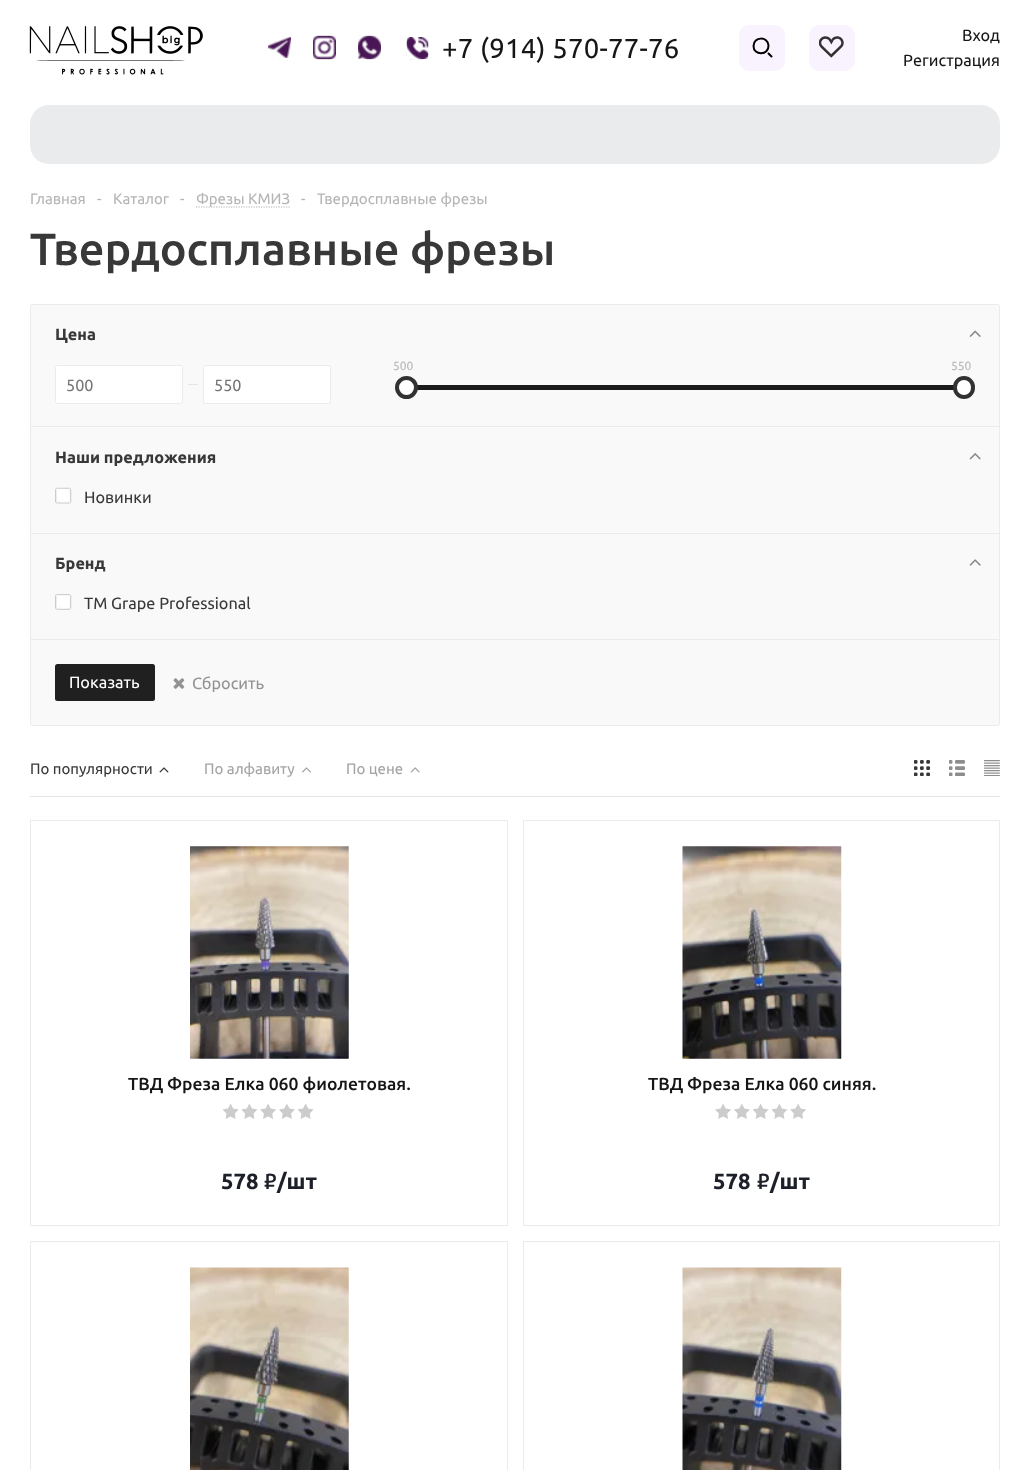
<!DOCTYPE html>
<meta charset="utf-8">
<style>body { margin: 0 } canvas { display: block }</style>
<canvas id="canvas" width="1029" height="1470"></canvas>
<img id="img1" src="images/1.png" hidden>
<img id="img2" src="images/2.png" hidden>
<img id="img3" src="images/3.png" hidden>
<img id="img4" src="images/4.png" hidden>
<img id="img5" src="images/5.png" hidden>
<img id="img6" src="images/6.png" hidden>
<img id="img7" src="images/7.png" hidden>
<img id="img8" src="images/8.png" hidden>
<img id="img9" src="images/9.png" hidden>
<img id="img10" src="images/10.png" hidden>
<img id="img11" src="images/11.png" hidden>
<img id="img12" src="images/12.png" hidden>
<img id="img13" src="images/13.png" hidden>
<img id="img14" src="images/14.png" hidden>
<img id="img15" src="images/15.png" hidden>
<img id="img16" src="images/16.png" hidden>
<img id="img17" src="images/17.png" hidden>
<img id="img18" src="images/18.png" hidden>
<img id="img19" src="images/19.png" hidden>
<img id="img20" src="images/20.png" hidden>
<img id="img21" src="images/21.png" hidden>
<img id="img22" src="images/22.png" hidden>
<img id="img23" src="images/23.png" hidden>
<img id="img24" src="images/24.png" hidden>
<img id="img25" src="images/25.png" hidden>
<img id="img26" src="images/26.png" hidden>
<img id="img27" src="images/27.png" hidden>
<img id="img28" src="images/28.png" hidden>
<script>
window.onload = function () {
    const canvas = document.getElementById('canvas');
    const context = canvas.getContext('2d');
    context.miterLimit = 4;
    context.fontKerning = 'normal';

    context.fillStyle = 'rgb(255, 255, 255)';
    context.fillRect(0, 0, 1029, 1470);
    context.drawImage(document.getElementById('img1'), 29, 26, 174, 49);
    context.drawImage(document.getElementById('img2'), 268, 37, 23, 21);
    context.drawImage(document.getElementById('img3'), 313, 35, 23, 25);
    context.drawImage(document.getElementById('img4'), 358, 35, 23, 25);
    context.drawImage(document.getElementById('img5'), 406, 37, 23, 23);
    context.fillStyle = 'rgb(249, 243, 255)';
    context.beginPath();
    context.roundRect(739, 25, 46, 46, 10);
    context.fill();
    context.beginPath();
    context.moveTo(753.5, 46);
    context.bezierCurveTo(753.5, 36.5, 768, 36, 768.5, 45.5);
    context.bezierCurveTo(769, 55.5, 753.5, 56, 753.5, 46);
    context.closePath();
    context.moveTo(768.5, 53.5);
    context.lineTo(771.5, 56.5);
    context.strokeStyle = 'rgb(0, 0, 0)';
    context.lineWidth = 2;
    context.lineCap = 'round';
    context.lineJoin = 'round';
    context.stroke();
    context.beginPath();
    context.roundRect(809, 25, 46, 46, 10);
    context.fill();
    context.drawImage(document.getElementById('img6'), 819, 36, 25, 22);
    context.fillStyle = 'rgb(234, 235, 236)';
    context.beginPath();
    context.roundRect(30, 105, 970, 59, 19);
    context.fill();
    context.beginPath();
    context.moveTo(196, 207);
    context.lineTo(290, 207);
    context.strokeStyle = 'rgb(180, 180, 180)';
    context.lineWidth = 1.2;
    context.lineCap = 'butt';
    context.lineJoin = 'miter';
    context.setLineDash([1.25, 1.25]);
    context.stroke();
    context.fillStyle = 'rgb(249, 249, 249)';
    context.beginPath();
    context.roundRect(30.5, 304.5, 969, 421, 2);
    context.fill();
    context.strokeStyle = 'rgb(234, 235, 236)';
    context.lineWidth = 1;
    context.setLineDash([]);
    context.stroke();
    context.fillStyle = 'rgb(234, 235, 236)';
    context.fillRect(31, 426, 968, 1);
    context.drawImage(document.getElementById('img7'), 969, 330, 12, 7);
    context.fillStyle = 'rgb(28, 27, 27)';
    context.fillRect(417, 385, 537, 5);
    context.fillStyle = 'rgb(255, 255, 255)';
    context.beginPath();
    context.arc(406.5, 387.5, 9.5, 0, 2 * Math.PI);
    context.fill();
    context.strokeStyle = 'rgb(50, 50, 50)';
    context.lineWidth = 4;
    context.stroke();
    context.beginPath();
    context.roundRect(955, 378, 18, 19, 9);
    context.fill();
    context.stroke();
    context.beginPath();
    context.roundRect(55.5, 365.5, 127, 38, 2);
    context.fill();
    context.strokeStyle = 'rgb(234, 235, 236)';
    context.lineWidth = 1;
    context.stroke();
    context.fillStyle = 'rgb(229, 229, 229)';
    context.fillRect(188, 384, 10, 1);
    context.fillStyle = 'rgb(255, 255, 255)';
    context.beginPath();
    context.roundRect(203.5, 365.5, 127, 38, 2);
    context.fill();
    context.stroke();
    context.fillStyle = 'rgb(234, 235, 236)';
    context.fillRect(31, 533, 968, 1);
    context.drawImage(document.getElementById('img8'), 969, 453, 12, 7);
    context.drawImage(document.getElementById('img9'), 55, 487, 17, 17);
    context.fillRect(31, 639, 968, 1);
    context.drawImage(document.getElementById('img10'), 969, 559, 12, 7);
    context.drawImage(document.getElementById('img11'), 55, 594, 17, 16);
    context.fillStyle = 'rgb(33, 32, 32)';
    context.beginPath();
    context.roundRect(55, 664, 100, 37, 2.5);
    context.fill();
    context.drawImage(document.getElementById('img12'), 173, 678, 12, 11);
    context.fillStyle = 'rgb(229, 229, 229)';
    context.fillRect(30, 796, 970, 1);
    context.drawImage(document.getElementById('img13'), 159, 767, 10, 6);
    context.drawImage(document.getElementById('img14'), 302, 767, 9, 6);
    context.drawImage(document.getElementById('img15'), 410, 767, 10, 6);
    context.drawImage(document.getElementById('img16'), 914, 760, 16, 16);
    context.drawImage(document.getElementById('img17'), 949, 760, 16, 16);
    context.drawImage(document.getElementById('img18'), 984, 760, 16, 16);
    context.strokeRect(30.5, 820.5, 477, 405);
    context.drawImage(document.getElementById('img19'), 190, 846, 159, 213);
    context.drawImage(document.getElementById('img20'), 223, 1104, 16, 15);
    context.drawImage(document.getElementById('img21'), 241, 1104, 17, 15);
    context.drawImage(document.getElementById('img22'), 260, 1104, 16, 15);
    context.drawImage(document.getElementById('img23'), 279, 1104, 16, 15);
    context.drawImage(document.getElementById('img20'), 298, 1104, 16, 15);
    context.strokeRect(523.5, 820.5, 476, 405);
    context.drawImage(document.getElementById('img24'), 682, 846, 160, 213);
    context.drawImage(document.getElementById('img22'), 715, 1104, 16, 15);
    context.drawImage(document.getElementById('img23'), 734, 1104, 16, 15);
    context.drawImage(document.getElementById('img25'), 753, 1104, 16, 15);
    context.drawImage(document.getElementById('img26'), 771, 1104, 17, 15);
    context.drawImage(document.getElementById('img22'), 790, 1104, 16, 15);
    context.strokeRect(30.5, 1241.5, 477, 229);
    context.drawImage(document.getElementById('img27'), 190, 1267, 159, 203);
    context.strokeRect(523.5, 1241.5, 476, 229);
    context.drawImage(document.getElementById('img28'), 682, 1267, 160, 203);
    context.letterSpacing = '0.25px';
    context.font = '27.5px Ubuntu';
    context.fillStyle = 'rgb(22, 22, 22)';
    context.fillText('+7 (914) 570-77-76', 442, 58);
    context.letterSpacing = '0px';
    context.font = '16.25px Ubuntu';
    context.fillText('Вход', 962, 41);
    context.fillText('Регистрация', 903, 66);
    context.font = '15px Ubuntu';
    context.fillStyle = 'rgb(182, 181, 181)';
    context.fillText('Главная', 30, 204);
    context.fillText('-', 97, 204);
    context.fillText('Каталог', 113, 204);
    context.fillText('-', 180, 204);
    context.fillText('Фрезы КМИЗ', 196, 204);
    context.fillText('-', 301, 204);
    context.fillText('Твердосплавные фрезы', 317, 204);
    context.font = '500 45px Ubuntu';
    context.fillStyle = 'rgb(56, 56, 56)';
    context.fillText('Твердосплавные фрезы', 30, 265);
    context.font = 'bold 16.25px Ubuntu';
    context.fillText('Цена', 55, 340);
    context.font = '12px Ubuntu';
    context.fillStyle = 'rgb(182, 181, 181)';
    context.fillText('500', 393, 370);
    context.fillText('550', 951, 370);
    context.font = '16.25px Ubuntu';
    context.fillStyle = 'rgb(117, 117, 117)';
    context.fillText('500', 66, 391);
    context.fillText('550', 214, 391);
    context.font = 'bold 16.25px Ubuntu';
    context.fillStyle = 'rgb(56, 56, 56)';
    context.fillText('Наши предложения', 55, 463);
    context.font = '16.25px Ubuntu';
    context.fillText('Новинки', 84, 503);
    context.font = 'bold 16.25px Ubuntu';
    context.fillText('Бренд', 55, 569);
    context.font = '16.25px Ubuntu';
    context.fillText('TM Grape Professional', 84, 609);
    context.fillStyle = 'rgb(255, 255, 255)';
    context.fillText('Показать', 69, 688);
    context.fillStyle = 'rgb(147, 147, 147)';
    context.fillText('Сбросить', 192, 689);
    context.font = '15px Ubuntu';
    context.fillStyle = 'rgb(56, 56, 56)';
    context.fillText('По популярности', 30, 774);
    context.fillStyle = 'rgb(165, 163, 163)';
    context.fillText('По алфавиту', 204, 774);
    context.fillText('По цене', 346, 774);
    context.font = '500 17.5px Ubuntu';
    context.fillStyle = 'rgb(22, 22, 22)';
    context.fillText('ТВД Фреза Елка 060 фиолетовая.', 128, 1090);
    context.font = 'bold 22px Ubuntu';
    context.fillStyle = 'rgb(29, 32, 41)';
    context.fillText('578', 221, 1189);
    context.font = '600 22px Ubuntu';
    context.fillText('₽', 264, 1189);
    context.font = 'bold 22px Ubuntu';
    context.fillText('/шт', 277, 1189);
    context.font = '500 17.5px Ubuntu';
    context.fillStyle = 'rgb(22, 22, 22)';
    context.fillText('ТВД Фреза Елка 060 синяя.', 648, 1090);
    context.font = 'bold 22px Ubuntu';
    context.fillStyle = 'rgb(29, 32, 41)';
    context.fillText('578', 713, 1189);
    context.font = '600 22px Ubuntu';
    context.fillText('₽', 757, 1189);
    context.font = 'bold 22px Ubuntu';
    context.fillText('/шт', 770, 1189);
};
</script>
